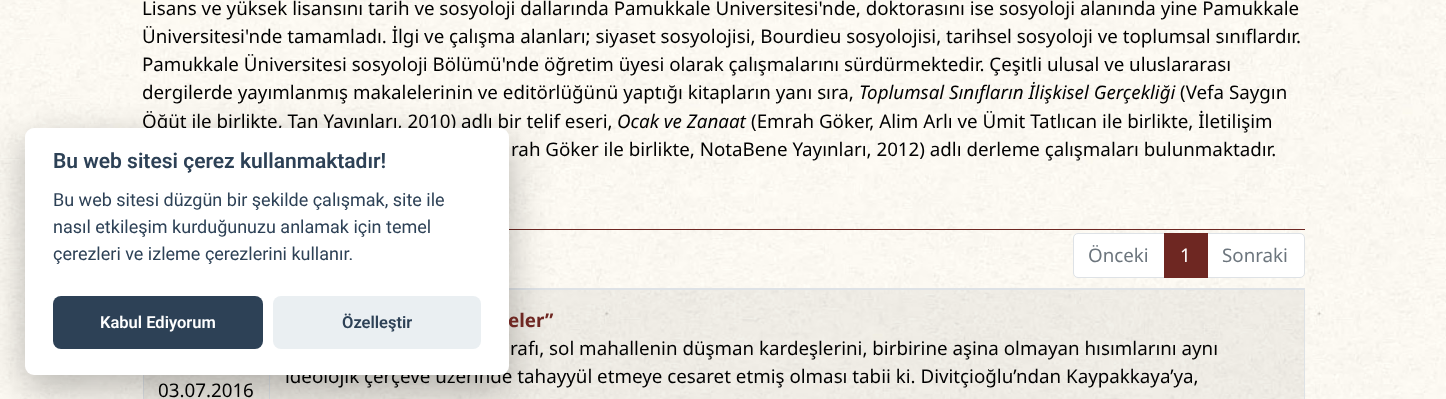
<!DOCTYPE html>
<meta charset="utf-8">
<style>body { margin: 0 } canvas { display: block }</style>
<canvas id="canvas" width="1446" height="399"></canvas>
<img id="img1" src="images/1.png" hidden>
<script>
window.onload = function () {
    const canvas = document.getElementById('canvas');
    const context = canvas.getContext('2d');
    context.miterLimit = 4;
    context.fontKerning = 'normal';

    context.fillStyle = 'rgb(255, 255, 255)';
    context.fillRect(0, 0, 1446, 399);
    context.drawImage(document.getElementById('img1'), 0, 0, 1446, 399);
    context.fillStyle = 'rgb(110, 39, 34)';
    context.fillRect(509, 229, 796, 1);
    context.fillStyle = 'rgb(255, 255, 255)';
    context.beginPath();
    context.roundRect(1073.5, 233.5, 91, 44, [4.5, 0, 0, 4.5]);
    context.fill();
    context.strokeStyle = 'rgb(222, 226, 230)';
    context.stroke();
    context.beginPath();
    context.roundRect(1206.5, 233.5, 98, 44, [0, 4.5, 4.5, 0]);
    context.fill();
    context.stroke();
    context.fillStyle = 'rgb(110, 39, 34)';
    context.fillRect(1164, 233, 44, 45);
    context.strokeRect(143.5, 288.5, 1161, 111);
    context.fillStyle = 'rgba(0, 0, 0, 0.05)';
    context.fillRect(144, 290, 1160, 109);
    context.fillStyle = 'rgb(222, 226, 230)';
    context.fillRect(509, 289, 795, 1);
    context.fillRect(269, 375, 1, 24);
    context.fillStyle = 'rgba(2, 2, 3, 0.28)';
    context.filter = 'blur(19px)';
    context.beginPath();
    context.roundRect(25, 140, 484, 248, 9);
    context.fill();
    context.filter = 'none';
    context.font = '18.75px Noto Sans';
    context.fillStyle = 'rgb(0, 0, 0)';
    context.fillText('Lisans ve yüksek lisansını tarih ve sosyoloji dallarında Pamukkale Üniversitesi\'nde, doktorasını ise sosyoloji alanında yine Pamukkale', 142, 15);
    context.fillText('Üniversitesi\'nde tamamladı. İlgi ve çalışma alanları; siyaset sosyolojisi, Bourdieu sosyolojisi, tarihsel sosyoloji ve toplumsal sınıflardır.', 142, 43);
    context.fillText('Pamukkale Üniversitesi sosyoloji Bölümü\'nde öğretim üyesi olarak çalışmalarını sürdürmektedir. Çeşitli ulusal ve uluslararası', 142, 71);
    context.fillText('dergilerde yayımlanmış makalelerinin ve editörlüğünü yaptığı kitapların yanı sıra,', 142, 99);
    context.font = 'italic 18.75px Noto Sans';
    context.fillText('Toplumsal Sınıfların İlişkisel Gerçekliği', 859, 99);
    context.font = '18.75px Noto Sans';
    context.fillText('(Vefa Saygın', 1180, 99);
    context.fillText('Öğüt ile birlikte, Tan Yayınları, 2010) adlı bir telif eseri,', 142, 128);
    context.font = 'italic 18.75px Noto Sans';
    context.fillText('Ocak ve Zanaat', 617, 128);
    context.font = '18.75px Noto Sans';
    context.fillText('(Emrah Göker, Alim Arlı ve Ümit Tatlıcan ile birlikte, İletilişim', 751, 128);
    context.fillText('rah Göker ile birlikte, NotaBene Yayınları, 2012) adlı derleme çalışmaları bulunmaktadır.', 511, 156);
    context.fillStyle = 'rgb(108, 117, 125)';
    context.fillText('Önceki', 1088, 262);
    context.fillStyle = 'rgb(255, 255, 255)';
    context.fillText('1', 1180, 262);
    context.fillStyle = 'rgb(108, 117, 125)';
    context.fillText('Sonraki', 1222, 262);
    context.font = 'bold 18.75px Noto Sans';
    context.fillStyle = 'rgb(110, 39, 34)';
    context.fillText('eler”', 508, 327);
    context.font = '18.75px Noto Sans';
    context.fillStyle = 'rgb(0, 0, 0)';
    context.fillText('rafı, sol mahallenin düşman kardeşlerini, birbirine aşina olmayan hısımlarını aynı', 510, 355);
    context.fillText('ideolojik çerçeve üzerinde tahayyül etmeye cesaret etmiş olması tabii ki. Divitçioğlu’ndan Kaypakkaya’ya,', 285, 383);
    context.fillText('03.07.2016', 158, 397);
    context.fillStyle = 'rgb(255, 255, 255)';
    context.beginPath();
    context.roundRect(25, 128, 484, 247, 9);
    context.fill();
    context.font = '600 21px Roboto';
    context.fillStyle = 'rgb(45, 65, 86)';
    context.fillText('Bu web sitesi çerez kullanmaktadır!', 53, 168);
    context.font = '18px Roboto';
    context.fillText('Bu web sitesi düzgün bir şekilde çalışmak, site ile', 53, 206);
    context.fillText('nasıl etkileşim kurduğunuzu anlamak için temel', 53, 233);
    context.fillText('çerezleri ve izleme çerezlerini kullanır.', 53, 260);
    context.beginPath();
    context.roundRect(53, 296, 210, 53, 8);
    context.fill();
    context.font = '600 16.5px Roboto';
    context.fillStyle = 'rgb(255, 255, 255)';
    context.fillText('Kabul Ediyorum', 100, 328);
    context.fillStyle = 'rgb(234, 239, 242)';
    context.beginPath();
    context.roundRect(273, 296, 208, 53, 8);
    context.fill();
    context.fillStyle = 'rgb(45, 65, 86)';
    context.fillText('Özelleştir', 342, 328);
};
</script>
